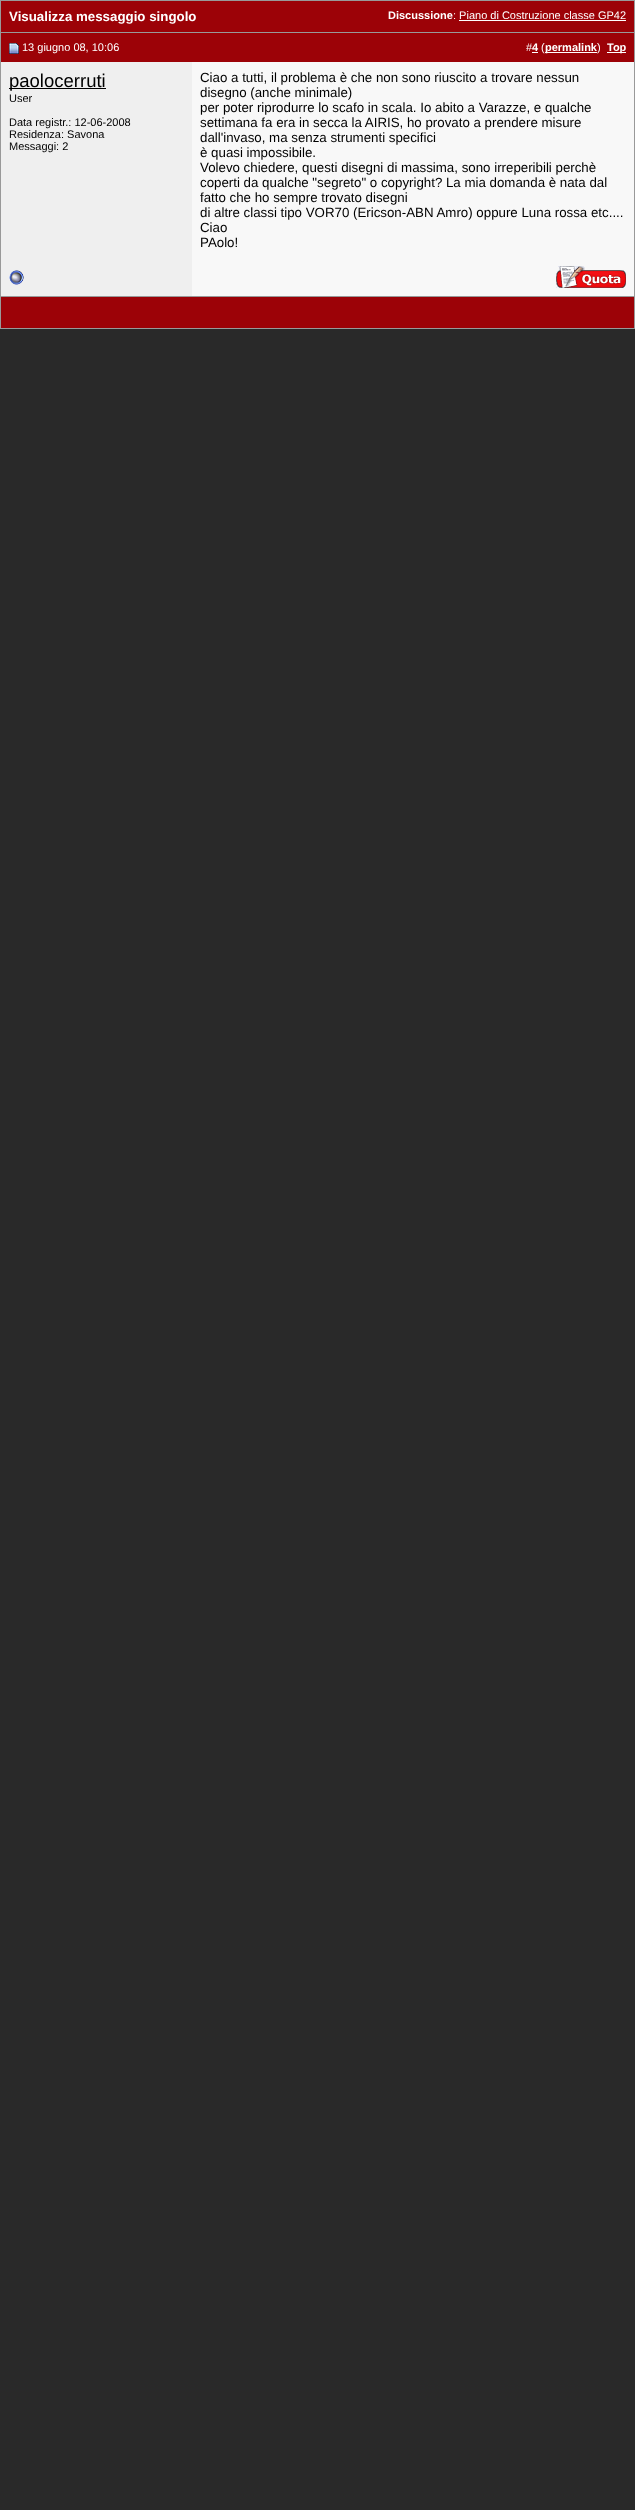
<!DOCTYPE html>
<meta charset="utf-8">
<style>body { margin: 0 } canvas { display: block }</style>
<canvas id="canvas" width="635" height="2510"></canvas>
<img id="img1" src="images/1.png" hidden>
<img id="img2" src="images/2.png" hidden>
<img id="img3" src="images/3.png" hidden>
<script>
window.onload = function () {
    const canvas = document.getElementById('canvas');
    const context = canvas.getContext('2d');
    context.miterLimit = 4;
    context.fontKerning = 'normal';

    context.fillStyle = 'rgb(41, 41, 41)';
    context.fillRect(0, 0, 635, 2510);
    context.fillStyle = 'rgb(153, 153, 153)';
    context.fillRect(0, 0, 635, 1);
    context.fillRect(634, 0, 1, 32);
    context.fillRect(0, 0, 1, 32);
    context.fillStyle = 'rgb(156, 2, 7)';
    context.fillRect(1, 1, 633, 31);
    context.fillStyle = 'rgb(255, 255, 255)';
    context.fillRect(459, 20, 167, 1);
    context.strokeStyle = 'rgb(153, 153, 153)';
    context.strokeRect(0.5, 32.5, 634, 264);
    context.fillStyle = 'rgb(156, 2, 7)';
    context.fillRect(1, 33, 633, 29);
    context.drawImage(document.getElementById('img1'), 9, 43, 10, 11);
    context.fillStyle = 'rgb(255, 255, 255)';
    context.fillRect(532, 52, 6, 1);
    context.fillRect(545, 52, 52, 1);
    context.fillRect(607, 52, 19, 1);
    context.fillStyle = 'rgb(239, 239, 239)';
    context.fillRect(1, 62, 191, 234);
    context.fillStyle = 'rgb(0, 0, 0)';
    context.fillRect(9, 88, 97, 1);
    context.fillStyle = 'rgb(248, 248, 248)';
    context.fillRect(192, 62, 442, 234);
    context.drawImage(document.getElementById('img2'), 9, 270, 15, 15);
    context.drawImage(document.getElementById('img3'), 556, 266, 70, 22);
    context.fillStyle = 'rgb(153, 153, 153)';
    context.fillRect(634, 297, 1, 32);
    context.fillRect(0, 328, 635, 1);
    context.fillRect(0, 297, 1, 32);
    context.fillStyle = 'rgb(156, 2, 7)';
    context.fillRect(1, 297, 633, 31);
    context.font = 'bold 13.3px Liberation Sans';
    context.fillStyle = 'rgb(255, 255, 255)';
    context.fillText('Visualizza messaggio singolo', 9, 21);
    context.font = 'bold 11px Liberation Sans';
    context.fillText('Discussione', 388, 19);
    context.font = '11px Liberation Sans';
    context.fillText(': Piano di Costruzione classe GP42', 453, 19);
    context.fillText('13 giugno 08, 10:06', 22, 51);
    context.fillText('#', 526, 51);
    context.font = 'bold 11px Liberation Sans';
    context.fillText('4', 532, 51);
    context.font = '11px Liberation Sans';
    context.fillText('(', 541, 51);
    context.font = 'bold 11px Liberation Sans';
    context.fillText('permalink', 545, 51);
    context.font = '11px Liberation Sans';
    context.fillText(')', 597, 51);
    context.font = 'bold 11px Liberation Sans';
    context.fillText('Top', 607, 51);
    context.font = '18.5px Liberation Sans';
    context.fillStyle = 'rgb(0, 0, 0)';
    context.fillText('paolocerruti', 9, 87);
    context.font = '11px Liberation Sans';
    context.fillText('User', 9, 102);
    context.fillText('Data registr.: 12-06-2008', 9, 126);
    context.fillText('Residenza: Savona', 9, 138);
    context.fillText('Messaggi: 2', 9, 150);
    context.font = '13.3px Liberation Sans';
    context.fillText('Ciao a tutti, il problema è che non sono riuscito a trovare nessun', 200, 82);
    context.fillText('disegno (anche minimale)', 200, 97);
    context.fillText('per poter riprodurre lo scafo in scala. Io abito a Varazze, e qualche', 200, 112);
    context.fillText('settimana fa era in secca la AIRIS, ho provato a prendere misure', 200, 127);
    context.fillText('dall\'invaso, ma senza strumenti specifici', 200, 142);
    context.fillText('è quasi impossibile.', 200, 157);
    context.fillText('Volevo chiedere, questi disegni di massima, sono irreperibili perchè', 200, 172);
    context.fillText('coperti da qualche "segreto" o copyright? La mia domanda è nata dal', 200, 187);
    context.fillText('fatto che ho sempre trovato disegni', 200, 202);
    context.fillText('di altre classi tipo VOR70 (Ericson-ABN Amro) oppure Luna rossa etc....', 200, 217);
    context.fillText('Ciao', 200, 232);
    context.fillText('PAolo!', 200, 247);
};
</script>
